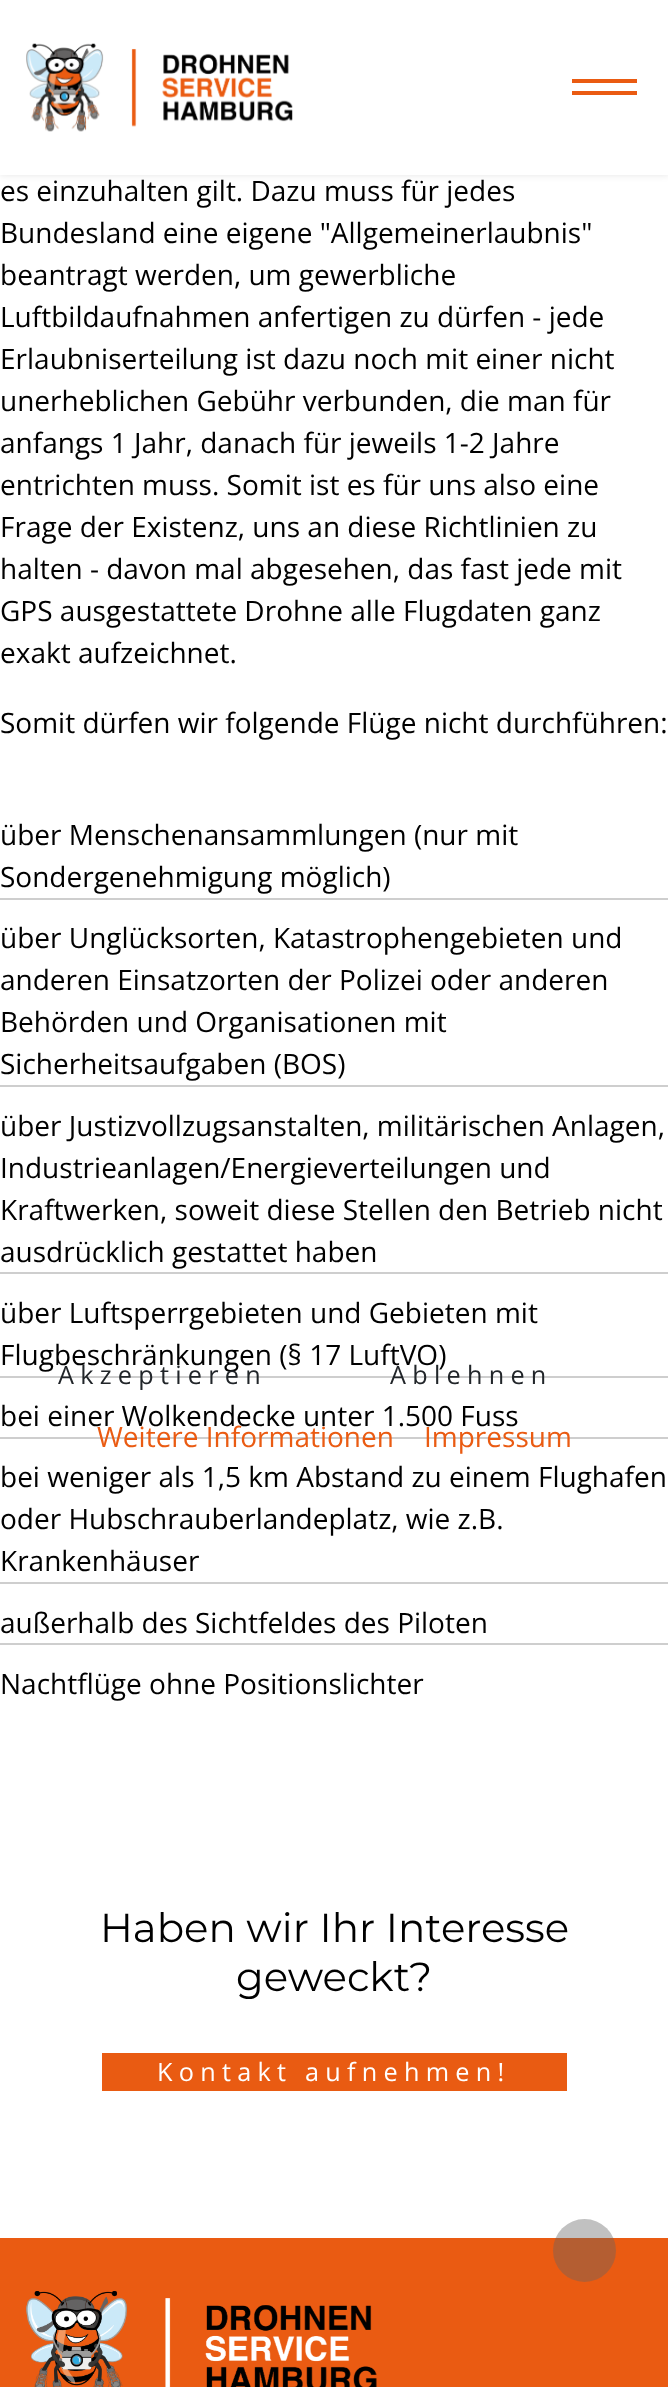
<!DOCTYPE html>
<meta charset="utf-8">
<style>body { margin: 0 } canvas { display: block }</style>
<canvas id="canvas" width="668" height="2387"></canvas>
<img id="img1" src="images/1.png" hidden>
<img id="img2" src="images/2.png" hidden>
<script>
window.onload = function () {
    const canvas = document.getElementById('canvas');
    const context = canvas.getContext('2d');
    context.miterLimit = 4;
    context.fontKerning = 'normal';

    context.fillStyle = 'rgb(255, 255, 255)';
    context.fillRect(0, 0, 668, 2387);
    context.fillStyle = 'rgba(0, 0, 0, 0.1)';
    context.filter = 'blur(3.5px)';
    context.beginPath();
    context.rect(0, 0, 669, 175);
    context.fill();
    context.filter = 'none';
    context.fillStyle = 'rgb(255, 255, 255)';
    context.fillRect(0, 0, 668, 175);
    context.drawImage(document.getElementById('img1'), 26, 43, 267, 89);
    context.fillStyle = 'rgb(234, 91, 18)';
    context.fillRect(572, 79, 65, 4);
    context.fillRect(572, 91, 65, 4);
    context.fillStyle = 'rgb(206, 206, 206)';
    context.fillRect(0, 898, 668, 2);
    context.fillRect(0, 1085, 668, 2);
    context.fillRect(0, 1272, 668, 2);
    context.fillRect(0, 1376, 668, 2);
    context.fillRect(0, 1437, 668, 2);
    context.fillRect(0, 1582, 668, 2);
    context.fillRect(0, 1643, 668, 2);
    context.fillStyle = 'rgb(233, 91, 18)';
    context.fillRect(102, 2053, 465, 38);
    context.fillStyle = 'rgb(234, 91, 18)';
    context.fillRect(0, 2238, 668, 149);
    context.drawImage(document.getElementById('img2'), 26, 2291, 351, 96);
    context.fillStyle = 'rgba(100, 100, 100, 0.4)';
    context.beginPath();
    context.arc(584.5, 2250.5, 31.5, 0, 2 * Math.PI);
    context.fill();
    context.font = '28px Open Sans';
    context.fillStyle = 'rgb(0, 0, 0)';
    context.fillText('es einzuhalten gilt. Dazu muss für jedes', 0, 201);
    context.fillText('Bundesland eine eigene "Allgemeinerlaubnis"', 0, 243);
    context.fillText('beantragt werden, um gewerbliche', 0, 285);
    context.fillText('Luftbildaufnahmen anfertigen zu dürfen - jede', 0, 327);
    context.fillText('Erlaubniserteilung ist dazu noch mit einer nicht', 0, 369);
    context.fillText('unerheblichen Gebühr verbunden, die man für', 0, 411);
    context.fillText('anfangs 1 Jahr, danach für jeweils 1-2 Jahre', 0, 453);
    context.fillText('entrichten muss. Somit ist es für uns also eine', 0, 495);
    context.fillText('Frage der Existenz, uns an diese Richtlinien zu', 0, 537);
    context.fillText('halten - davon mal abgesehen, das fast jede mit', 0, 579);
    context.fillText('GPS ausgestattete Drohne alle Flugdaten ganz', 0, 621);
    context.fillText('exakt aufzeichnet.', 0, 663);
    context.fillText('Somit dürfen wir folgende Flüge nicht durchführen:', 0, 733);
    context.fillText('über Menschenansammlungen (nur mit', 0, 845);
    context.fillText('Sondergenehmigung möglich)', 0, 887);
    context.fillText('über Unglücksorten, Katastrophengebieten und', 0, 948);
    context.fillText('anderen Einsatzorten der Polizei oder anderen', 0, 990);
    context.fillText('Behörden und Organisationen mit', 0, 1032);
    context.fillText('Sicherheitsaufgaben (BOS)', 0, 1074);
    context.fillText('über Justizvollzugsanstalten, militärischen Anlagen,', 0, 1136);
    context.fillText('Industrieanlagen/Energieverteilungen und', 0, 1178);
    context.fillText('Kraftwerken, soweit diese Stellen den Betrieb nicht', 0, 1220);
    context.fillText('ausdrücklich gestattet haben', 0, 1262);
    context.fillText('über Luftsperrgebieten und Gebieten mit', 0, 1323);
    context.fillText('Flugbeschränkungen (§ 17 LuftVO)', 0, 1365);
    context.fillText('bei einer Wolkendecke unter 1.500 Fuss', 0, 1426);
    context.fillText('bei weniger als 1,5 km Abstand zu einem Flughafen', 0, 1487);
    context.fillText('oder Hubschrauberlandeplatz, wie z.B.', 0, 1529);
    context.fillText('Krankenhäuser', 0, 1571);
    context.fillText('außerhalb des Sichtfeldes des Piloten', 0, 1633);
    context.fillText('Nachtflüge ohne Positionslichter', 0, 1694);
    context.font = '100 40.4px Montserrat';
    context.fillText('Haben wir Ihr Interesse', 100, 1942);
    context.fillText('geweckt?', 236, 1991);
    context.letterSpacing = '6.25px';
    context.font = '25.25px Open Sans';
    context.fillStyle = 'rgb(255, 255, 255)';
    context.fillText('Kontakt aufnehmen!', 157, 2081);
    context.fillStyle = 'rgb(33, 37, 41)';
    context.fillText('Akzeptieren', 58, 1384);
    context.fillText('Ablehnen', 390, 1384);
    context.letterSpacing = '0px';
    context.font = '28px Open Sans';
    context.fillStyle = 'rgb(234, 91, 18)';
    context.fillText('Weitere Informationen', 97, 1447);
    context.fillText('Impressum', 424, 1447);
};
</script>
